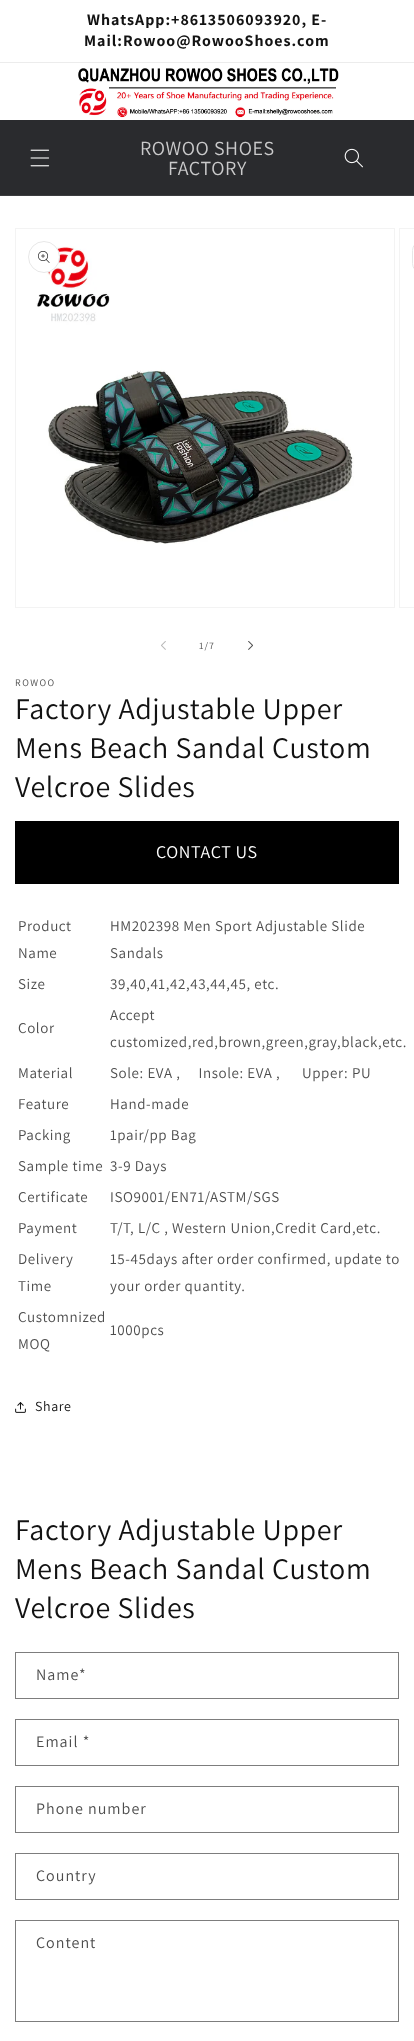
<!DOCTYPE html>
<meta charset="utf-8">
<style>body { margin: 0 } canvas { display: block }</style>
<canvas id="canvas" width="414" height="2041"></canvas>
<img id="img1" src="images/1.png" hidden>
<img id="img2" src="images/2.png" hidden>
<img id="img3" src="images/3.png" hidden>
<img id="img4" src="images/5.png" hidden>
<img id="img5" src="images/4.png" hidden>
<img id="img6" src="images/6.png" hidden>
<img id="img7" src="images/7.png" hidden>
<img id="img8" src="images/8.png" hidden>
<script>
window.onload = function () {
    const canvas = document.getElementById('canvas');
    const context = canvas.getContext('2d');
    context.miterLimit = 4;
    context.fontKerning = 'normal';

    context.fillStyle = 'rgb(255, 255, 255)';
    context.fillRect(0, 0, 414, 2041);
    context.fillStyle = 'rgb(236, 236, 236)';
    context.fillRect(0, 62, 414, 1);
    context.drawImage(document.getElementById('img1'), 78, 68, 261, 50);
    context.fillStyle = 'rgb(42, 43, 46)';
    context.fillRect(0, 120, 414, 75);
    context.fillStyle = 'rgb(59, 60, 63)';
    context.fillRect(0, 195, 414, 1);
    context.drawImage(document.getElementById('img2'), 30, 149, 20, 18);
    context.drawImage(document.getElementById('img3'), 344, 148, 19, 20);
    context.strokeStyle = 'rgb(243, 243, 243)';
    context.strokeRect(15.5, 228.5, 379, 379);
    context.drawImage(document.getElementById('img4'), 36, 246, 318, 298);
    context.fillStyle = 'rgb(255, 255, 255)';
    context.beginPath();
    context.arc(44, 257, 16, 0, 2 * Math.PI);
    context.fill();
    context.beginPath();
    context.arc(44, 257, 15.5, 0, 2 * Math.PI);
    context.strokeStyle = 'rgba(18, 18, 18, 0.1)';
    context.stroke();
    context.drawImage(document.getElementById('img5'), 38, 251, 12, 12);
    context.strokeStyle = 'rgb(243, 243, 243)';
    context.strokeRect(399.5, 228.5, 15, 379);
    context.beginPath();
    context.roundRect(412.5, 241.5, 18, 31, 15.5);
    context.strokeStyle = 'rgb(231, 231, 231)';
    context.stroke();
    context.drawImage(document.getElementById('img6'), 161, 641, 5, 9);
    context.drawImage(document.getElementById('img7'), 248, 641, 5, 9);
    context.fillStyle = 'rgb(0, 0, 0)';
    context.fillRect(15, 821, 384, 63);
    context.drawImage(document.getElementById('img8'), 15, 1402, 11, 11);
    context.strokeStyle = 'rgb(125, 125, 125)';
    context.strokeRect(15.5, 1652.5, 383, 46);
    context.strokeRect(15.5, 1719.5, 383, 46);
    context.strokeRect(15.5, 1786.5, 383, 46);
    context.strokeRect(15.5, 1853.5, 383, 46);
    context.strokeRect(15.5, 1920.5, 383, 101);
    context.letterSpacing = '1px';
    context.font = 'bold 16px Assistant';
    context.fillStyle = 'rgb(18, 18, 18)';
    context.fillText('WhatsApp:+8613506093920, E-', 87, 25);
    context.fillText('Mail:Rowoo@RowooShoes.com', 84, 46);
    context.letterSpacing = '0.6px';
    context.font = '20px Assistant';
    context.fillStyle = 'rgb(202, 202, 203)';
    context.fillText('ROWOO SHOES', 140, 155);
    context.fillText('FACTORY', 168, 175);
    context.letterSpacing = '1px';
    context.font = '10px Assistant';
    context.fillStyle = 'rgb(77, 77, 77)';
    context.fillText('1/7', 199, 649);
    context.letterSpacing = '1.5px';
    context.fillText('ROWOO', 15, 686);
    context.letterSpacing = '0.6px';
    context.font = '30px Assistant';
    context.fillStyle = 'rgb(18, 18, 18)';
    context.fillText('Factory Adjustable Upper', 15, 719);
    context.fillText('Mens Beach Sandal Custom', 15, 758);
    context.fillText('Velcroe Slides', 15, 797);
    context.font = '18px Assistant';
    context.fillStyle = 'rgb(255, 255, 255)';
    context.fillText('CONTACT US', 156, 858);
    context.font = '15px Assistant';
    context.fillStyle = 'rgb(77, 77, 77)';
    context.fillText('Product', 18, 931);
    context.fillText('Name', 18, 958);
    context.fillText('HM202398 Men Sport Adjustable Slide', 110, 931);
    context.fillText('Sandals', 110, 958);
    context.fillText('Size', 18, 989);
    context.fillText('39,40,41,42,43,44,45, etc.', 110, 989);
    context.fillText('Color', 18, 1033);
    context.fillText('Accept', 110, 1020);
    context.fillText('customized,red,brown,green,gray,black,etc.', 110, 1047);
    context.fillText('Material', 18, 1078);
    context.fillText('Sole: EVA ,     Insole: EVA ,      Upper: PU', 110, 1078);
    context.fillText('Feature', 18, 1109);
    context.fillText('Hand-made', 110, 1109);
    context.fillText('Packing', 18, 1140);
    context.fillText('1pair/pp Bag', 110, 1140);
    context.fillText('Sample time', 18, 1171);
    context.fillText('3-9 Days', 110, 1171);
    context.fillText('Certificate', 18, 1202);
    context.fillText('ISO9001/EN71/ASTM/SGS', 110, 1202);
    context.fillText('Payment', 18, 1233);
    context.fillText('T/T, L/C , Western Union,Credit Card,etc.', 110, 1233);
    context.fillText('Delivery', 18, 1264);
    context.fillText('Time', 18, 1291);
    context.fillText('15-45days after order confirmed, update to', 110, 1264);
    context.fillText('your order quantity.', 110, 1291);
    context.fillText('Customnized', 18, 1322);
    context.fillText('MOQ', 18, 1349);
    context.fillText('1000pcs', 110, 1335);
    context.font = '14px Assistant';
    context.fillStyle = 'rgb(18, 18, 18)';
    context.fillText('Share', 35, 1411);
    context.font = '30px Assistant';
    context.fillText('Factory Adjustable Upper', 15, 1540);
    context.fillText('Mens Beach Sandal Custom', 15, 1579);
    context.fillText('Velcroe Slides', 15, 1618);
    context.letterSpacing = '1px';
    context.font = '16px Assistant';
    context.fillStyle = 'rgb(77, 77, 77)';
    context.fillText('Name', 36, 1680);
    context.fillText('*', 79, 1680);
    context.fillText('Email *', 36, 1747);
    context.fillText('Phone number', 36, 1814);
    context.fillText('Country', 36, 1881);
    context.fillText('Content', 36, 1948);
};
</script>
